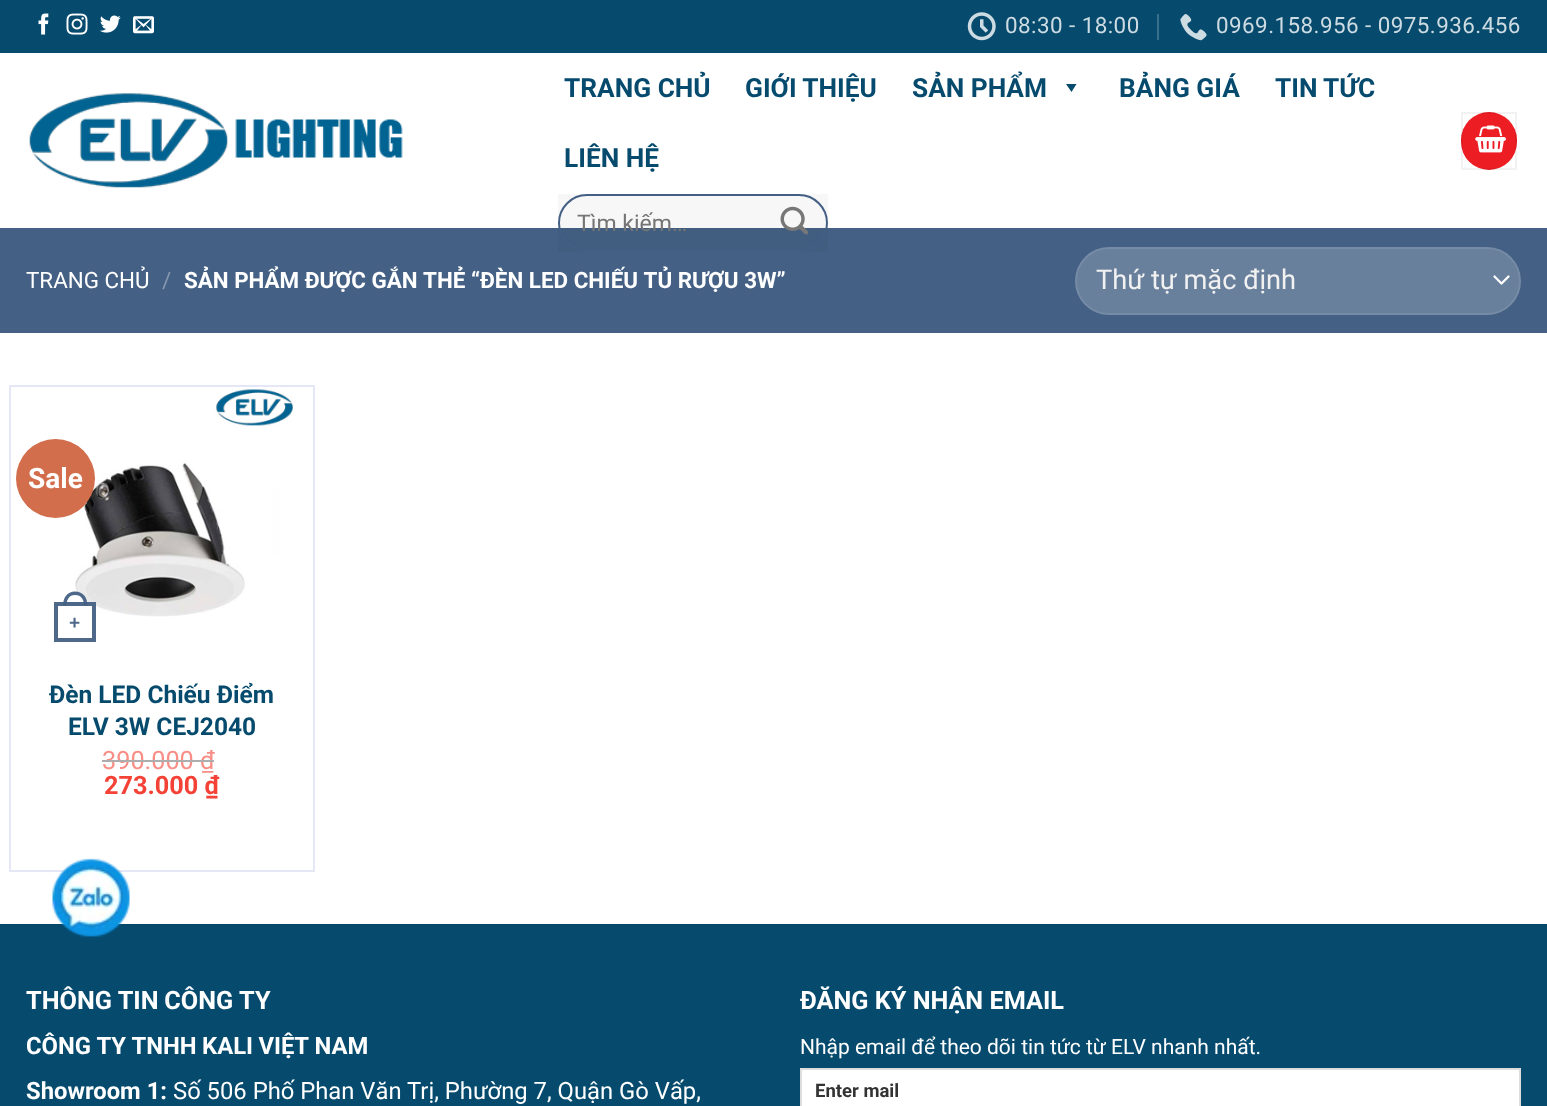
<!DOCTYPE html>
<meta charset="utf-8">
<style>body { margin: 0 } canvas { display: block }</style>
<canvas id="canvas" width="1547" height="1106"></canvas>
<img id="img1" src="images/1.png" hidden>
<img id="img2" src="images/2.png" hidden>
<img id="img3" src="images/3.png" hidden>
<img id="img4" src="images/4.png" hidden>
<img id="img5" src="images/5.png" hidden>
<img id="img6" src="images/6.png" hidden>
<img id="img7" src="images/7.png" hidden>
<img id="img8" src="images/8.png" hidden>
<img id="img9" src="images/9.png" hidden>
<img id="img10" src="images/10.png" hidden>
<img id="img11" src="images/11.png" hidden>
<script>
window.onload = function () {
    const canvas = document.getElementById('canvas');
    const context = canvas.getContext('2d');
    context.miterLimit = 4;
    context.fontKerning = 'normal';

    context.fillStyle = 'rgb(255, 255, 255)';
    context.fillRect(0, 0, 1547, 1106);
    context.fillStyle = 'rgb(6, 75, 110)';
    context.fillRect(0, 0, 1547, 53);
    context.drawImage(document.getElementById('img1'), 38, 13, 11, 22);
    context.drawImage(document.getElementById('img2'), 66, 13, 22, 22);
    context.drawImage(document.getElementById('img3'), 100, 15, 21, 18);
    context.drawImage(document.getElementById('img4'), 133, 16, 21, 18);
    context.drawImage(document.getElementById('img5'), 967, 12, 29, 29);
    context.fillStyle = 'rgb(56, 111, 139)';
    context.fillRect(1157, 14, 2, 26);
    context.drawImage(document.getElementById('img6'), 1180, 14, 27, 27);
    context.drawImage(document.getElementById('img7'), 29, 93, 374, 95);
    context.fillStyle = 'rgb(6, 75, 110)';
    context.beginPath();
    context.moveTo(1076.5, 84);
    context.lineTo(1071.5, 92);
    context.lineTo(1066, 84);
    context.closePath();
    context.fill();
    context.fillStyle = 'rgb(68, 96, 132)';
    context.fillRect(0, 228, 1547, 105);
    context.fillStyle = 'rgba(0, 0, 0, 0.03)';
    context.fillRect(558, 194, 270, 58);
    context.beginPath();
    context.roundRect(559, 195, 268, 56, 28);
    context.strokeStyle = 'rgb(68, 95, 132)';
    context.lineWidth = 2;
    context.stroke();
    context.drawImage(document.getElementById('img8'), 780, 206, 29, 29);
    context.fillStyle = 'rgb(237, 29, 36)';
    context.beginPath();
    context.roundRect(1461, 112, 56, 58, 28);
    context.fill();
    context.strokeStyle = 'rgba(0, 0, 0, 0.05)';
    context.strokeRect(1462, 113, 54, 56);
    context.drawImage(document.getElementById('img9'), 1475, 125, 31, 28);
    context.fillStyle = 'rgb(105, 128, 157)';
    context.beginPath();
    context.roundRect(1075, 247, 446, 68, 34);
    context.fill();
    context.beginPath();
    context.moveTo(1494.5, 276.5);
    context.lineTo(1501.5, 283.5);
    context.lineTo(1508.5, 276.5);
    context.strokeStyle = 'rgb(255, 255, 255)';
    context.lineWidth = 2.3;
    context.lineCap = 'round';
    context.lineJoin = 'round';
    context.stroke();
    context.beginPath();
    context.roundRect(1076, 248, 444, 66, 33);
    context.strokeStyle = 'rgba(255, 255, 255, 0.09)';
    context.lineWidth = 2;
    context.lineJoin = 'miter';
    context.stroke();
    context.strokeStyle = 'rgb(229, 231, 246)';
    context.strokeRect(10, 386, 304, 485);
    context.drawImage(document.getElementById('img10'), 75, 389, 219, 228);
    context.fillStyle = 'rgb(210, 110, 75)';
    context.beginPath();
    context.arc(55.5, 478.5, 39.5, 0, 2 * Math.PI);
    context.fill();
    context.strokeStyle = 'rgba(68, 96, 132, 0.95)';
    context.lineWidth = 4;
    context.strokeRect(56, 604, 38, 36);
    context.fillStyle = 'rgba(68, 96, 132, 0.95)';
    context.beginPath();
    context.moveTo(75, 591.5);
    context.bezierCurveTo(83.5, 591.5, 87.5, 598, 87.5, 605.5);
    context.lineTo(63, 605.5);
    context.bezierCurveTo(63, 598, 67, 591.5, 75, 591.5);
    context.closePath();
    context.moveTo(75, 595);
    context.bezierCurveTo(81.5, 595, 84, 600, 84, 605.5);
    context.lineTo(66.5, 605.5);
    context.bezierCurveTo(66.5, 600, 69, 595, 75, 595);
    context.closePath();
    context.fill('evenodd');
    context.fillStyle = 'rgb(6, 75, 110)';
    context.fillRect(0, 926, 1547, 180);
    context.fillStyle = 'rgb(6, 71, 105)';
    context.fillRect(0, 924, 1547, 2);
    context.fillStyle = 'rgb(255, 255, 255)';
    context.beginPath();
    context.rect(801, 1069, 719, 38);
    context.fill();
    context.strokeStyle = 'rgb(221, 221, 221)';
    context.lineWidth = 2;
    context.stroke();
    context.drawImage(document.getElementById('img11'), 52, 858, 78, 79);
    context.letterSpacing = '0.45px';
    context.font = '22.4px Roboto';
    context.fillStyle = 'rgb(205, 219, 226)';
    context.fillText('08:30 - 18:00', 1005, 33);
    context.fillText('0969.158.956 - 0975.936.456', 1216, 33);
    context.letterSpacing = '0px';
    context.font = 'bold 26.25px Roboto';
    context.fillStyle = 'rgb(6, 75, 110)';
    context.fillText('TRANG CHỦ', 564, 97);
    context.wordSpacing = '-1px';
    context.fillText('GIỚI THIỆU', 745, 97);
    context.wordSpacing = '0px';
    context.fillText('SẢN PHẨM', 912, 97);
    context.fillText('BẢNG GIÁ', 1119, 97);
    context.wordSpacing = '-1px';
    context.fillText('TIN TỨC', 1275, 97);
    context.wordSpacing = '0px';
    context.fillText('LIÊN HỆ', 564, 167);
    context.font = '23px Roboto';
    context.fillStyle = 'rgb(117, 117, 117)';
    context.fillText('Tìm kiếm…', 577, 231);
    context.font = '22.4px Roboto';
    context.fillStyle = 'rgb(255, 255, 255)';
    context.fillText('TRANG CHỦ', 26, 288);
    context.fillStyle = 'rgb(133, 152, 175)';
    context.fillText('/', 162, 288);
    context.font = 'bold 22.4px Roboto';
    context.fillStyle = 'rgb(255, 255, 255)';
    context.fillText('SẢN PHẨM ĐƯỢC GẮN THẺ “ĐÈN LED CHIẾU TỦ RƯỢU 3W”', 184, 288);
    context.font = '27.25px Roboto';
    context.fillStyle = 'rgb(241, 241, 241)';
    context.fillText('Thứ tự mặc định', 1096, 289);
    context.font = 'bold 28px Roboto';
    context.fillStyle = 'rgb(255, 255, 255)';
    context.fillText('Sale', 28, 488);
    context.font = 'bold 19px Liberation Sans';
    context.fillStyle = 'rgb(77, 104, 138)';
    context.fillText('+', 69, 629);
    context.font = 'bold 24.5px Roboto';
    context.fillStyle = 'rgb(6, 75, 110)';
    context.fillText('Đèn LED Chiếu Điểm', 49, 703);
    context.fillText('ELV 3W CEJ2040', 68, 735);
    context.font = '25.25px Roboto';
    context.fillStyle = 'rgb(248, 142, 134)';
    context.fillText('390.000 ₫', 102, 769);
    context.fillStyle = 'rgb(173, 173, 173)';
    context.fillRect(102, 760, 112, 2);
    context.font = 'bold 25.25px Roboto';
    context.fillStyle = 'rgb(244, 67, 54)';
    context.fillText('273.000 ₫', 104, 794);
    context.wordSpacing = '-0.5px';
    context.fillStyle = 'rgb(255, 255, 255)';
    context.fillText('THÔNG TIN CÔNG TY', 26, 1009);
    context.font = 'bold 23.8px Roboto';
    context.fillText('CÔNG TY TNHH KALI VIỆT NAM', 26, 1054);
    context.wordSpacing = '0px';
    context.fillText('Showroom 1:', 26, 1099);
    context.font = '23.8px Roboto';
    context.fillText('Số 506 Phố Phan Văn Trị, Phường 7, Quận Gò Vấp,', 173, 1099);
    context.font = 'bold 25.25px Roboto';
    context.fillText('ĐĂNG KÝ NHẬN EMAIL', 800, 1009);
    context.font = '21px Roboto';
    context.fillText('Nhập email để theo dõi tin tức từ ELV nhanh nhất.', 800, 1054);
    context.font = 'bold 18.5px Roboto';
    context.fillStyle = 'rgb(51, 51, 51)';
    context.fillText('Enter mail', 815, 1097);
};
</script>
